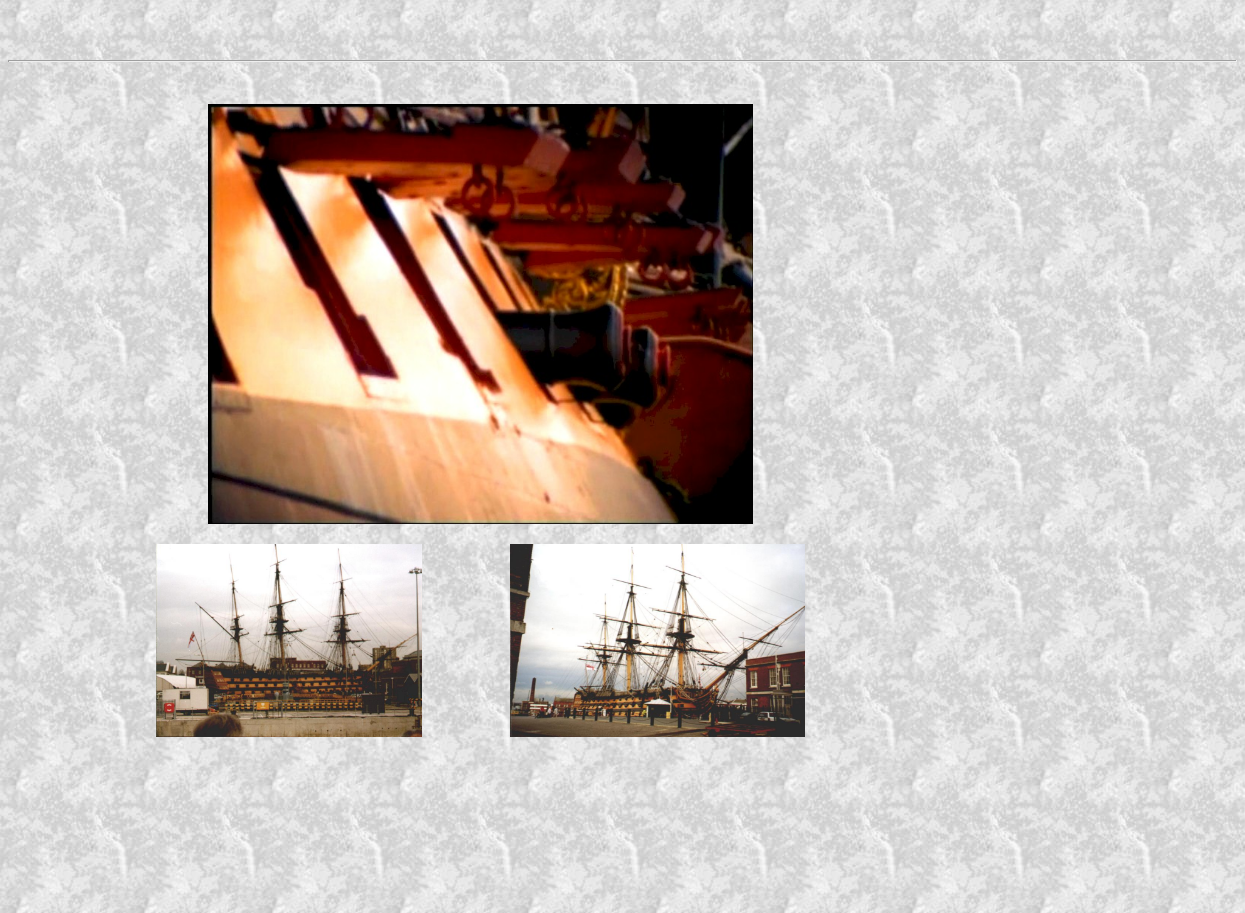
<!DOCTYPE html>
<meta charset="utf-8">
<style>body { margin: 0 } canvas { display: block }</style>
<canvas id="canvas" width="1245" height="913"></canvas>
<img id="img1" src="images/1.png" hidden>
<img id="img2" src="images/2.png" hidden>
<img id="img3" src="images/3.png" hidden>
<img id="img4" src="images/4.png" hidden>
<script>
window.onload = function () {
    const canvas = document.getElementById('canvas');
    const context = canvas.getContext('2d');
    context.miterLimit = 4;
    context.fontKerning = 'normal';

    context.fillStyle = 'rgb(255, 255, 255)';
    context.fillRect(0, 0, 1245, 913);
    context.drawImage(document.getElementById('img1'), 0, 0, 1245, 913);
    context.fillStyle = 'rgb(159, 159, 159)';
    context.fillRect(8, 60, 1229, 1);
    context.fillStyle = 'rgb(238, 238, 238)';
    context.fillRect(1236, 60, 1, 2);
    context.fillRect(8, 61, 1229, 1);
    context.fillStyle = 'rgb(159, 159, 159)';
    context.fillRect(8, 60, 1, 2);
    context.drawImage(document.getElementById('img2'), 208, 104, 545, 420);
    context.drawImage(document.getElementById('img3'), 156, 544, 266, 193);
    context.drawImage(document.getElementById('img4'), 510, 544, 295, 193);
};
</script>
